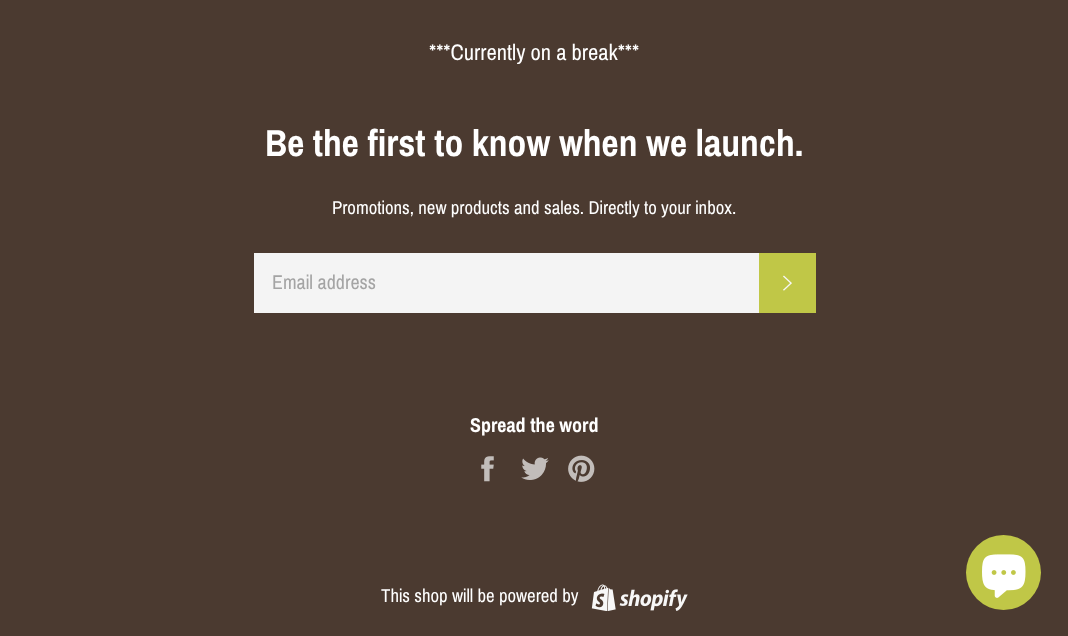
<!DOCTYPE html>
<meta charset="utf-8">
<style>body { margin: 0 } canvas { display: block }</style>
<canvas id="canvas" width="1068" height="636"></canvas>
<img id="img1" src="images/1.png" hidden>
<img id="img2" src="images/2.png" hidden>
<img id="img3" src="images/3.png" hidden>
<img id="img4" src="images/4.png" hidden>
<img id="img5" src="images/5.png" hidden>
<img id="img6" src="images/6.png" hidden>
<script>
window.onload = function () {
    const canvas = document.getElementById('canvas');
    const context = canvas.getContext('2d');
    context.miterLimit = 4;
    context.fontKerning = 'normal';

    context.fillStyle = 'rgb(75, 58, 48)';
    context.fillRect(0, 0, 1068, 636);
    context.fillStyle = 'rgb(244, 244, 244)';
    context.fillRect(254, 253, 505, 60);
    context.fillStyle = 'rgb(192, 199, 71)';
    context.fillRect(759, 253, 57, 60);
    context.drawImage(document.getElementById('img1'), 783, 275, 9, 16);
    context.drawImage(document.getElementById('img2'), 481, 456, 13, 26);
    context.drawImage(document.getElementById('img3'), 521, 457, 28, 23);
    context.drawImage(document.getElementById('img4'), 568, 455, 27, 27);
    context.drawImage(document.getElementById('img5'), 591, 584, 97, 27);
    context.beginPath();
    context.arc(1003.5, 572.5, 37.5, 0, 2 * Math.PI);
    context.fill();
    context.drawImage(document.getElementById('img6'), 982, 554, 44, 44);
    context.font = '22.5px Archivo Narrow';
    context.fillStyle = 'rgb(255, 255, 255)';
    context.fillText('***Currently on a break***', 429, 60);
    context.font = 'bold 37.5px Archivo Narrow';
    context.fillText('Be the first to know when we launch.', 265, 156);
    context.font = '18.75px Archivo Narrow';
    context.fillText('Promotions, new products and sales. Directly to your inbox.', 332, 214);
    context.font = '20px Archivo Narrow';
    context.fillStyle = 'rgb(164, 164, 164)';
    context.fillText('Email address', 272, 289);
    context.font = 'bold 20px Archivo Narrow';
    context.fillStyle = 'rgb(255, 255, 255)';
    context.fillText('Spread the word', 470, 432);
    context.font = '18.75px Archivo Narrow';
    context.fillText('This shop will be powered by', 381, 602);
};
</script>
